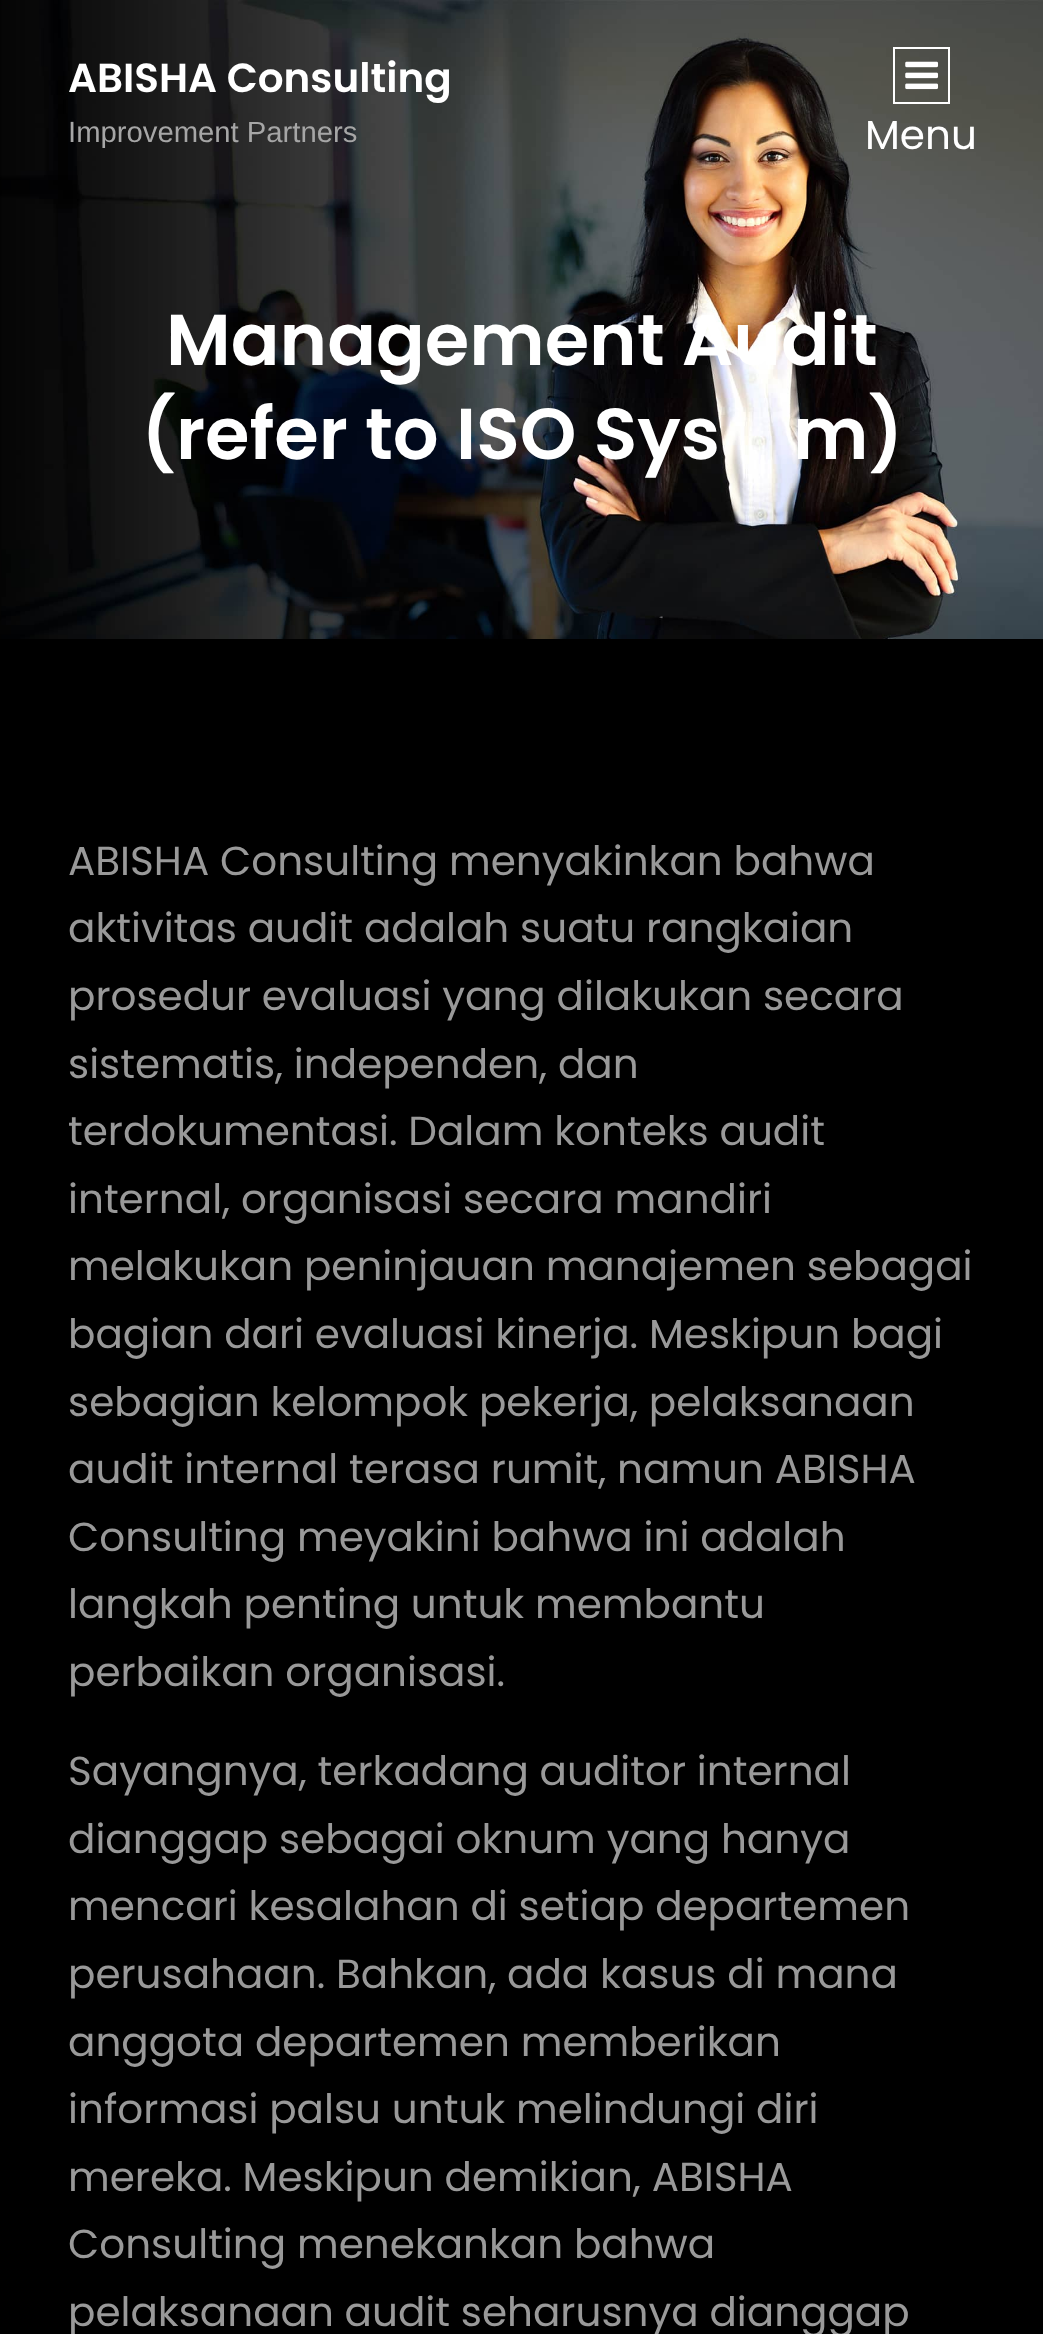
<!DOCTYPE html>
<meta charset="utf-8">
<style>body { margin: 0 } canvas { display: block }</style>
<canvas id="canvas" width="1043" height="2334"></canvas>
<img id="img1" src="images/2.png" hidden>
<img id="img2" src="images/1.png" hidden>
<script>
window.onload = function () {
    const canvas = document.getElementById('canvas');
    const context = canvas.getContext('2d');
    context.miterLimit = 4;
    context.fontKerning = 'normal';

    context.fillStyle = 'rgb(0, 0, 0)';
    context.fillRect(0, 0, 1043, 2334);
    context.drawImage(document.getElementById('img1'), 0, 0, 1043, 639);
    context.strokeStyle = 'rgb(255, 255, 255)';
    context.lineWidth = 2;
    context.strokeRect(894, 48, 55, 55);
    context.drawImage(document.getElementById('img2'), 905, 61, 34, 29);
    context.font = '600 40.5px Poppins';
    context.fillStyle = 'rgb(255, 255, 255)';
    context.fillText('ABISHA Consulting', 68, 92);
    context.font = '29.25px Liberation Sans';
    context.fillStyle = 'rgb(166, 166, 166)';
    context.fillText('Improvement Partners', 68, 142);
    context.font = '40.5px Poppins';
    context.fillStyle = 'rgb(255, 255, 255)';
    context.fillText('Menu', 865, 149);
    context.font = '600 72px Poppins';
    context.fillText('Management Audit', 166, 365);
    context.fillText('(refer to ISO Sys', 141, 459);
    context.fillText('m)', 793, 459);
    context.font = '40.5px Poppins';
    context.fillStyle = 'rgb(153, 153, 153)';
    context.fillText('ABISHA Consulting menyakinkan bahwa', 68, 875);
    context.fillText('aktivitas audit adalah suatu rangkaian', 68, 942);
    context.fillText('prosedur evaluasi yang dilakukan secara', 68, 1010);
    context.fillText('sistematis, independen, dan', 68, 1078);
    context.fillText('terdokumentasi. Dalam konteks audit', 68, 1145);
    context.fillText('internal, organisasi secara mandiri', 68, 1213);
    context.fillText('melakukan peninjauan manajemen sebagai', 68, 1280);
    context.fillText('bagian dari evaluasi kinerja. Meskipun bagi', 68, 1348);
    context.fillText('sebagian kelompok pekerja, pelaksanaan', 68, 1416);
    context.fillText('audit internal terasa rumit, namun ABISHA', 68, 1483);
    context.fillText('Consulting meyakini bahwa ini adalah', 68, 1551);
    context.fillText('langkah penting untuk membantu', 68, 1618);
    context.fillText('perbaikan organisasi.', 68, 1686);
    context.fillText('Sayangnya, terkadang auditor internal', 68, 1785);
    context.fillText('dianggap sebagai oknum yang hanya', 68, 1853);
    context.fillText('mencari kesalahan di setiap departemen', 68, 1920);
    context.fillText('perusahaan. Bahkan, ada kasus di mana', 68, 1988);
    context.fillText('anggota departemen memberikan', 68, 2056);
    context.fillText('informasi palsu untuk melindungi diri', 68, 2123);
    context.fillText('mereka. Meskipun demikian, ABISHA', 68, 2191);
    context.fillText('Consulting menekankan bahwa', 68, 2258);
    context.fillText('pelaksanaan audit seharusnya dianggap', 68, 2326);
};
</script>
